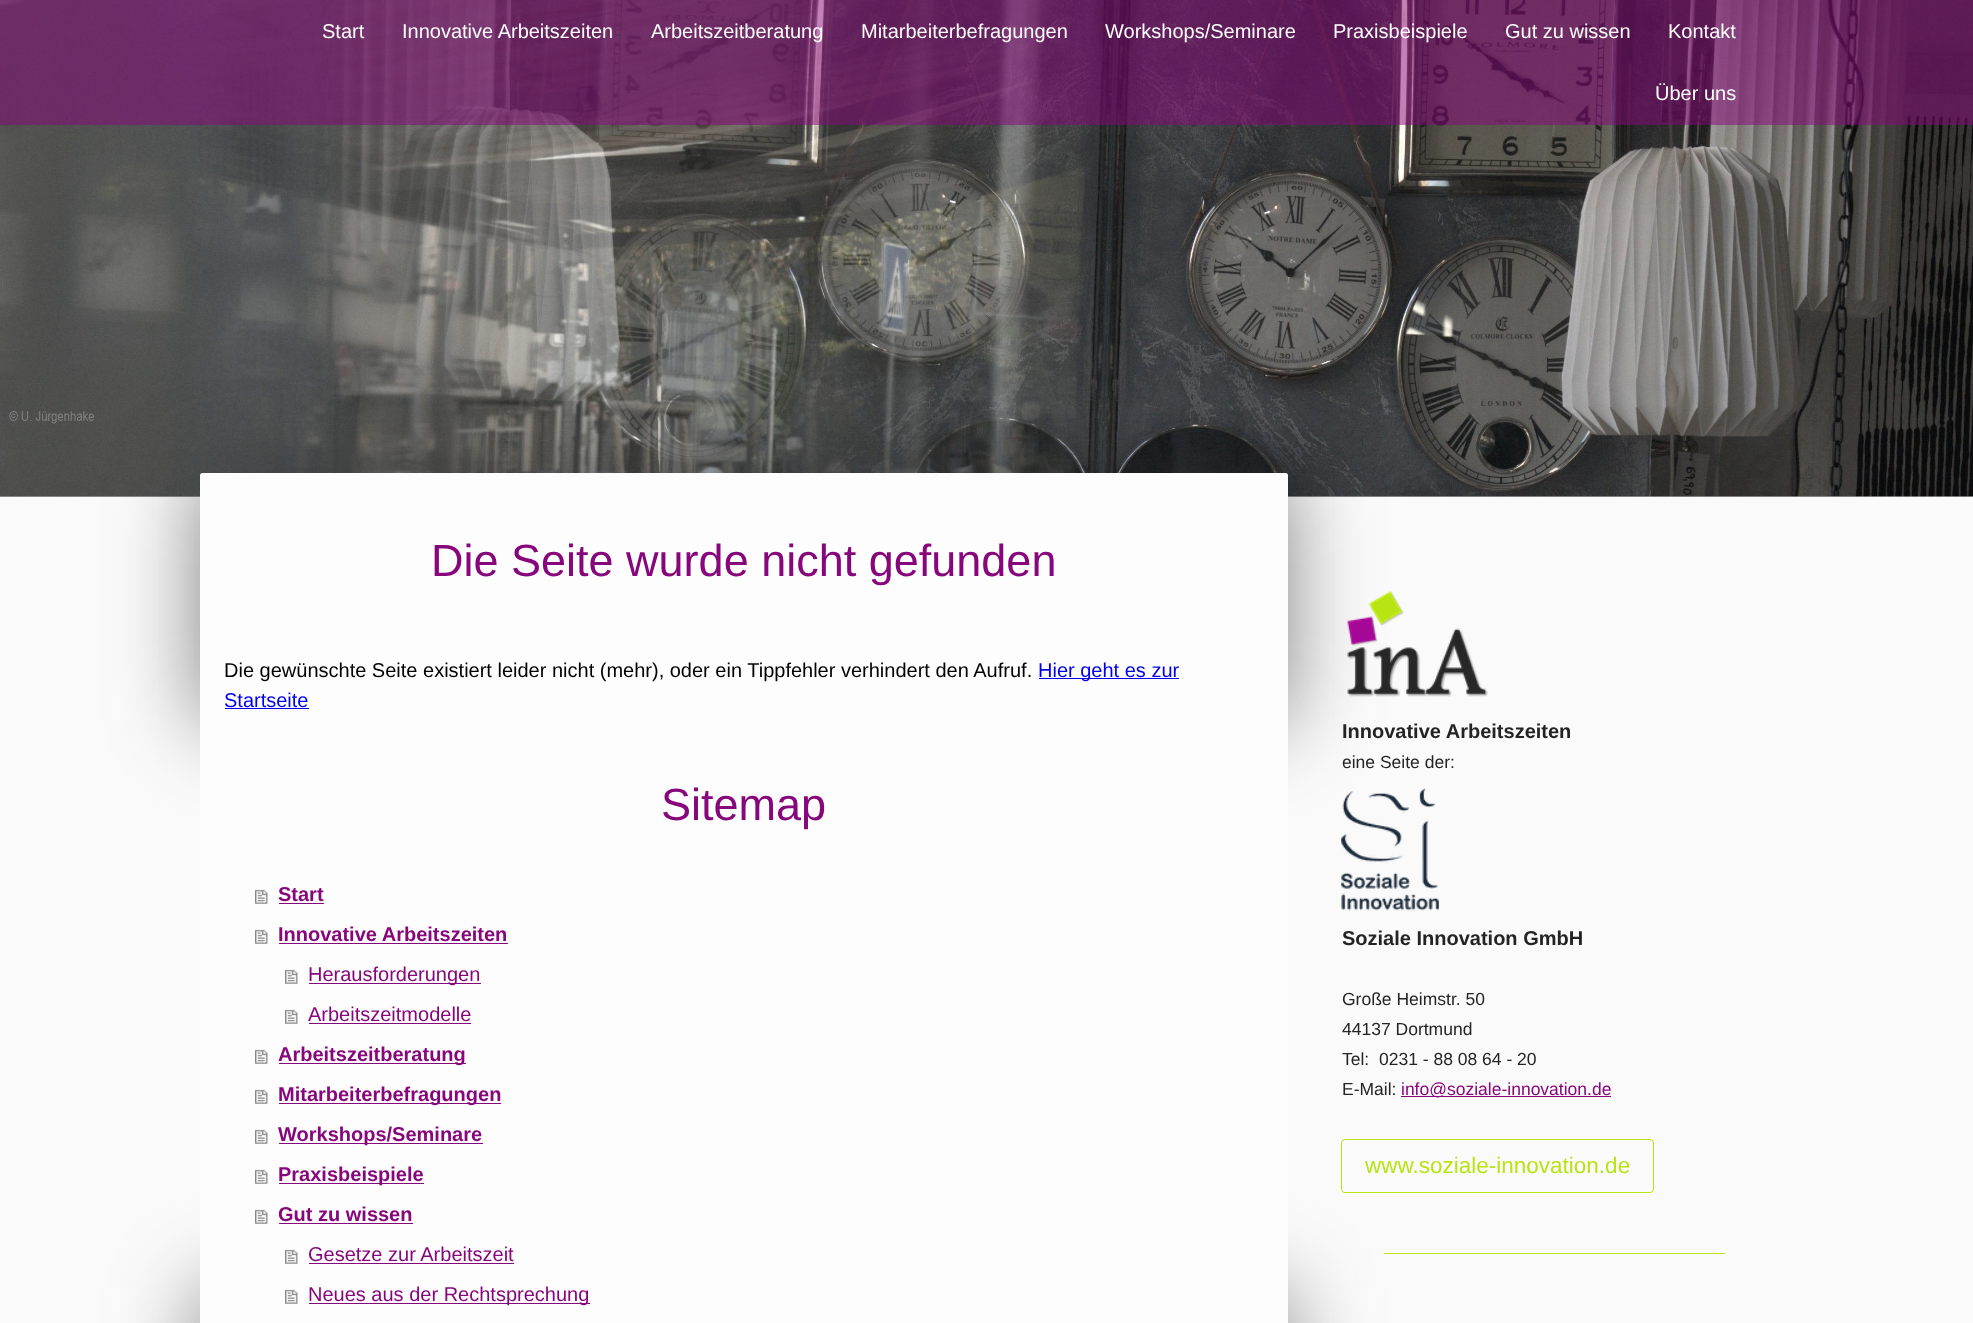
<!DOCTYPE html>
<meta charset="utf-8">
<style>body { margin: 0 } canvas { display: block }</style>
<canvas id="canvas" width="1973" height="1323"></canvas>
<img id="img1" src="images/1.png" hidden>
<img id="img2" src="images/2.png" hidden>
<img id="img3" src="images/3.png" hidden>
<img id="img4" src="images/4.png" hidden>
<img id="img5" src="images/5.png" hidden>
<img id="img6" src="images/6.png" hidden>
<script>
window.onload = function () {
    const canvas = document.getElementById('canvas');
    const context = canvas.getContext('2d');
    context.miterLimit = 4;
    context.fontKerning = 'normal';

    context.fillStyle = 'rgb(250, 250, 250)';
    context.fillRect(0, 0, 1973, 1323);
    context.fillStyle = 'rgb(153, 153, 153)';
    context.fillRect(0, 496, 1973, 1);
    context.drawImage(document.getElementById('img1'), 0, 0, 1973, 497);
    context.fillStyle = 'rgba(136, 6, 124, 0.5)';
    context.fillRect(0, 0, 1973, 125);
    context.fillStyle = 'rgba(51, 51, 51, 0.6)';
    context.filter = 'blur(42.5px)';
    context.beginPath();
    context.rect(199, 473, 1089, 250);
    context.fill();
    context.filter = 'none';
    context.beginPath();
    context.roundRect(1341.5, 1139.5, 312, 53, 3.5);
    context.strokeStyle = 'rgb(183, 228, 18)';
    context.stroke();
    context.fillStyle = 'rgb(183, 228, 18)';
    context.fillRect(1384, 1253, 341, 1);
    context.fillStyle = 'rgba(51, 51, 51, 0.6)';
    context.filter = 'blur(42.5px)';
    context.beginPath();
    context.rect(199, 1290, 1089, 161);
    context.fill();
    context.filter = 'none';
    context.fillStyle = 'rgb(253, 253, 253)';
    context.beginPath();
    context.roundRect(200, 473, 1088, 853, 2.5);
    context.fill();
    context.fillStyle = 'rgb(0, 0, 238)';
    context.fillRect(1039, 678, 140, 1);
    context.fillRect(225, 708, 84, 1);
    context.drawImage(document.getElementById('img2'), 255, 889, 13, 15);
    context.fillStyle = 'rgb(136, 6, 124)';
    context.fillRect(279, 903, 45, 1);
    context.drawImage(document.getElementById('img2'), 255, 929, 13, 15);
    context.fillRect(279, 943, 229, 1);
    context.drawImage(document.getElementById('img3'), 285, 969, 13, 15);
    context.fillRect(309, 983, 172, 1);
    context.drawImage(document.getElementById('img3'), 285, 1009, 13, 15);
    context.fillRect(309, 1023, 162, 1);
    context.drawImage(document.getElementById('img2'), 255, 1049, 13, 15);
    context.fillRect(279, 1063, 187, 1);
    context.drawImage(document.getElementById('img2'), 255, 1089, 13, 15);
    context.fillRect(279, 1103, 222, 1);
    context.drawImage(document.getElementById('img2'), 255, 1129, 13, 15);
    context.fillRect(279, 1143, 204, 1);
    context.drawImage(document.getElementById('img4'), 255, 1169, 13, 15);
    context.fillRect(279, 1183, 145, 1);
    context.drawImage(document.getElementById('img2'), 255, 1209, 13, 15);
    context.fillRect(279, 1223, 134, 1);
    context.drawImage(document.getElementById('img3'), 285, 1249, 13, 15);
    context.fillRect(309, 1263, 205, 1);
    context.drawImage(document.getElementById('img3'), 285, 1289, 13, 15);
    context.fillRect(309, 1303, 281, 1);
    context.drawImage(document.getElementById('img5'), 1347, 591, 141, 106);
    context.drawImage(document.getElementById('img6'), 1341, 788, 99, 123);
    context.fillRect(1401, 1096, 210, 1);
    context.font = '20px Liberation Sans';
    context.fillStyle = 'rgb(253, 253, 253)';
    context.fillText('Start', 322, 38);
    context.fillText('Innovative Arbeitszeiten', 402, 38);
    context.fillText('Arbeitszeitberatung', 651, 38);
    context.fillText('Mitarbeiterbefragungen', 861, 38);
    context.fillText('Workshops/Seminare', 1105, 38);
    context.fillText('Praxisbeispiele', 1333, 38);
    context.fillText('Gut zu wissen', 1505, 38);
    context.fillText('Kontakt', 1668, 38);
    context.fillText('Über uns', 1655, 100);
    context.font = '45px Liberation Sans';
    context.fillStyle = 'rgb(136, 6, 124)';
    context.fillText('Die Seite wurde nicht gefunden', 431, 576);
    context.font = '20px Liberation Sans';
    context.fillStyle = 'rgb(0, 0, 0)';
    context.fillText('Die gewünschte Seite existiert leider nicht (mehr), oder ein Tippfehler verhindert den Aufruf.', 224, 677);
    context.fillStyle = 'rgb(0, 0, 238)';
    context.fillText('Hier geht es zur', 1038, 677);
    context.fillText('Startseite', 224, 707);
    context.font = '45px Liberation Sans';
    context.fillStyle = 'rgb(136, 6, 124)';
    context.fillText('Sitemap', 661, 820);
    context.font = 'bold 20px Liberation Sans';
    context.fillText('Start', 278, 901);
    context.fillText('Innovative Arbeitszeiten', 278, 941);
    context.font = '20px Liberation Sans';
    context.fillText('Herausforderungen', 308, 981);
    context.fillText('Arbeitszeitmodelle', 308, 1021);
    context.font = 'bold 20px Liberation Sans';
    context.fillText('Arbeitszeitberatung', 278, 1061);
    context.fillText('Mitarbeiterbefragungen', 278, 1101);
    context.fillText('Workshops/Seminare', 278, 1141);
    context.fillText('Praxisbeispiele', 278, 1181);
    context.fillText('Gut zu wissen', 278, 1221);
    context.font = '20px Liberation Sans';
    context.fillText('Gesetze zur Arbeitszeit', 308, 1261);
    context.fillText('Neues aus der Rechtsprechung', 308, 1301);
    context.font = 'bold 20px Liberation Sans';
    context.fillStyle = 'rgb(36, 36, 36)';
    context.fillText('Innovative Arbeitszeiten', 1342, 738);
    context.font = '17.5px Liberation Sans';
    context.fillText('eine Seite der:', 1342, 768);
    context.font = 'bold 20px Liberation Sans';
    context.fillText('Soziale Innovation GmbH', 1342, 945);
    context.font = '17.5px Liberation Sans';
    context.fillText('Große Heimstr. 50', 1342, 1005);
    context.fillText('44137 Dortmund', 1342, 1035);
    context.fillText('Tel:  0231 - 88 08 64 - 20', 1342, 1065);
    context.fillText('E-Mail:', 1342, 1095);
    context.fillStyle = 'rgb(136, 6, 124)';
    context.fillText('info@soziale-innovation.de', 1401, 1095);
    context.font = '22.5px Liberation Sans';
    context.fillStyle = 'rgb(183, 228, 18)';
    context.fillText('www.soziale-innovation.de', 1365, 1173);
};
</script>
